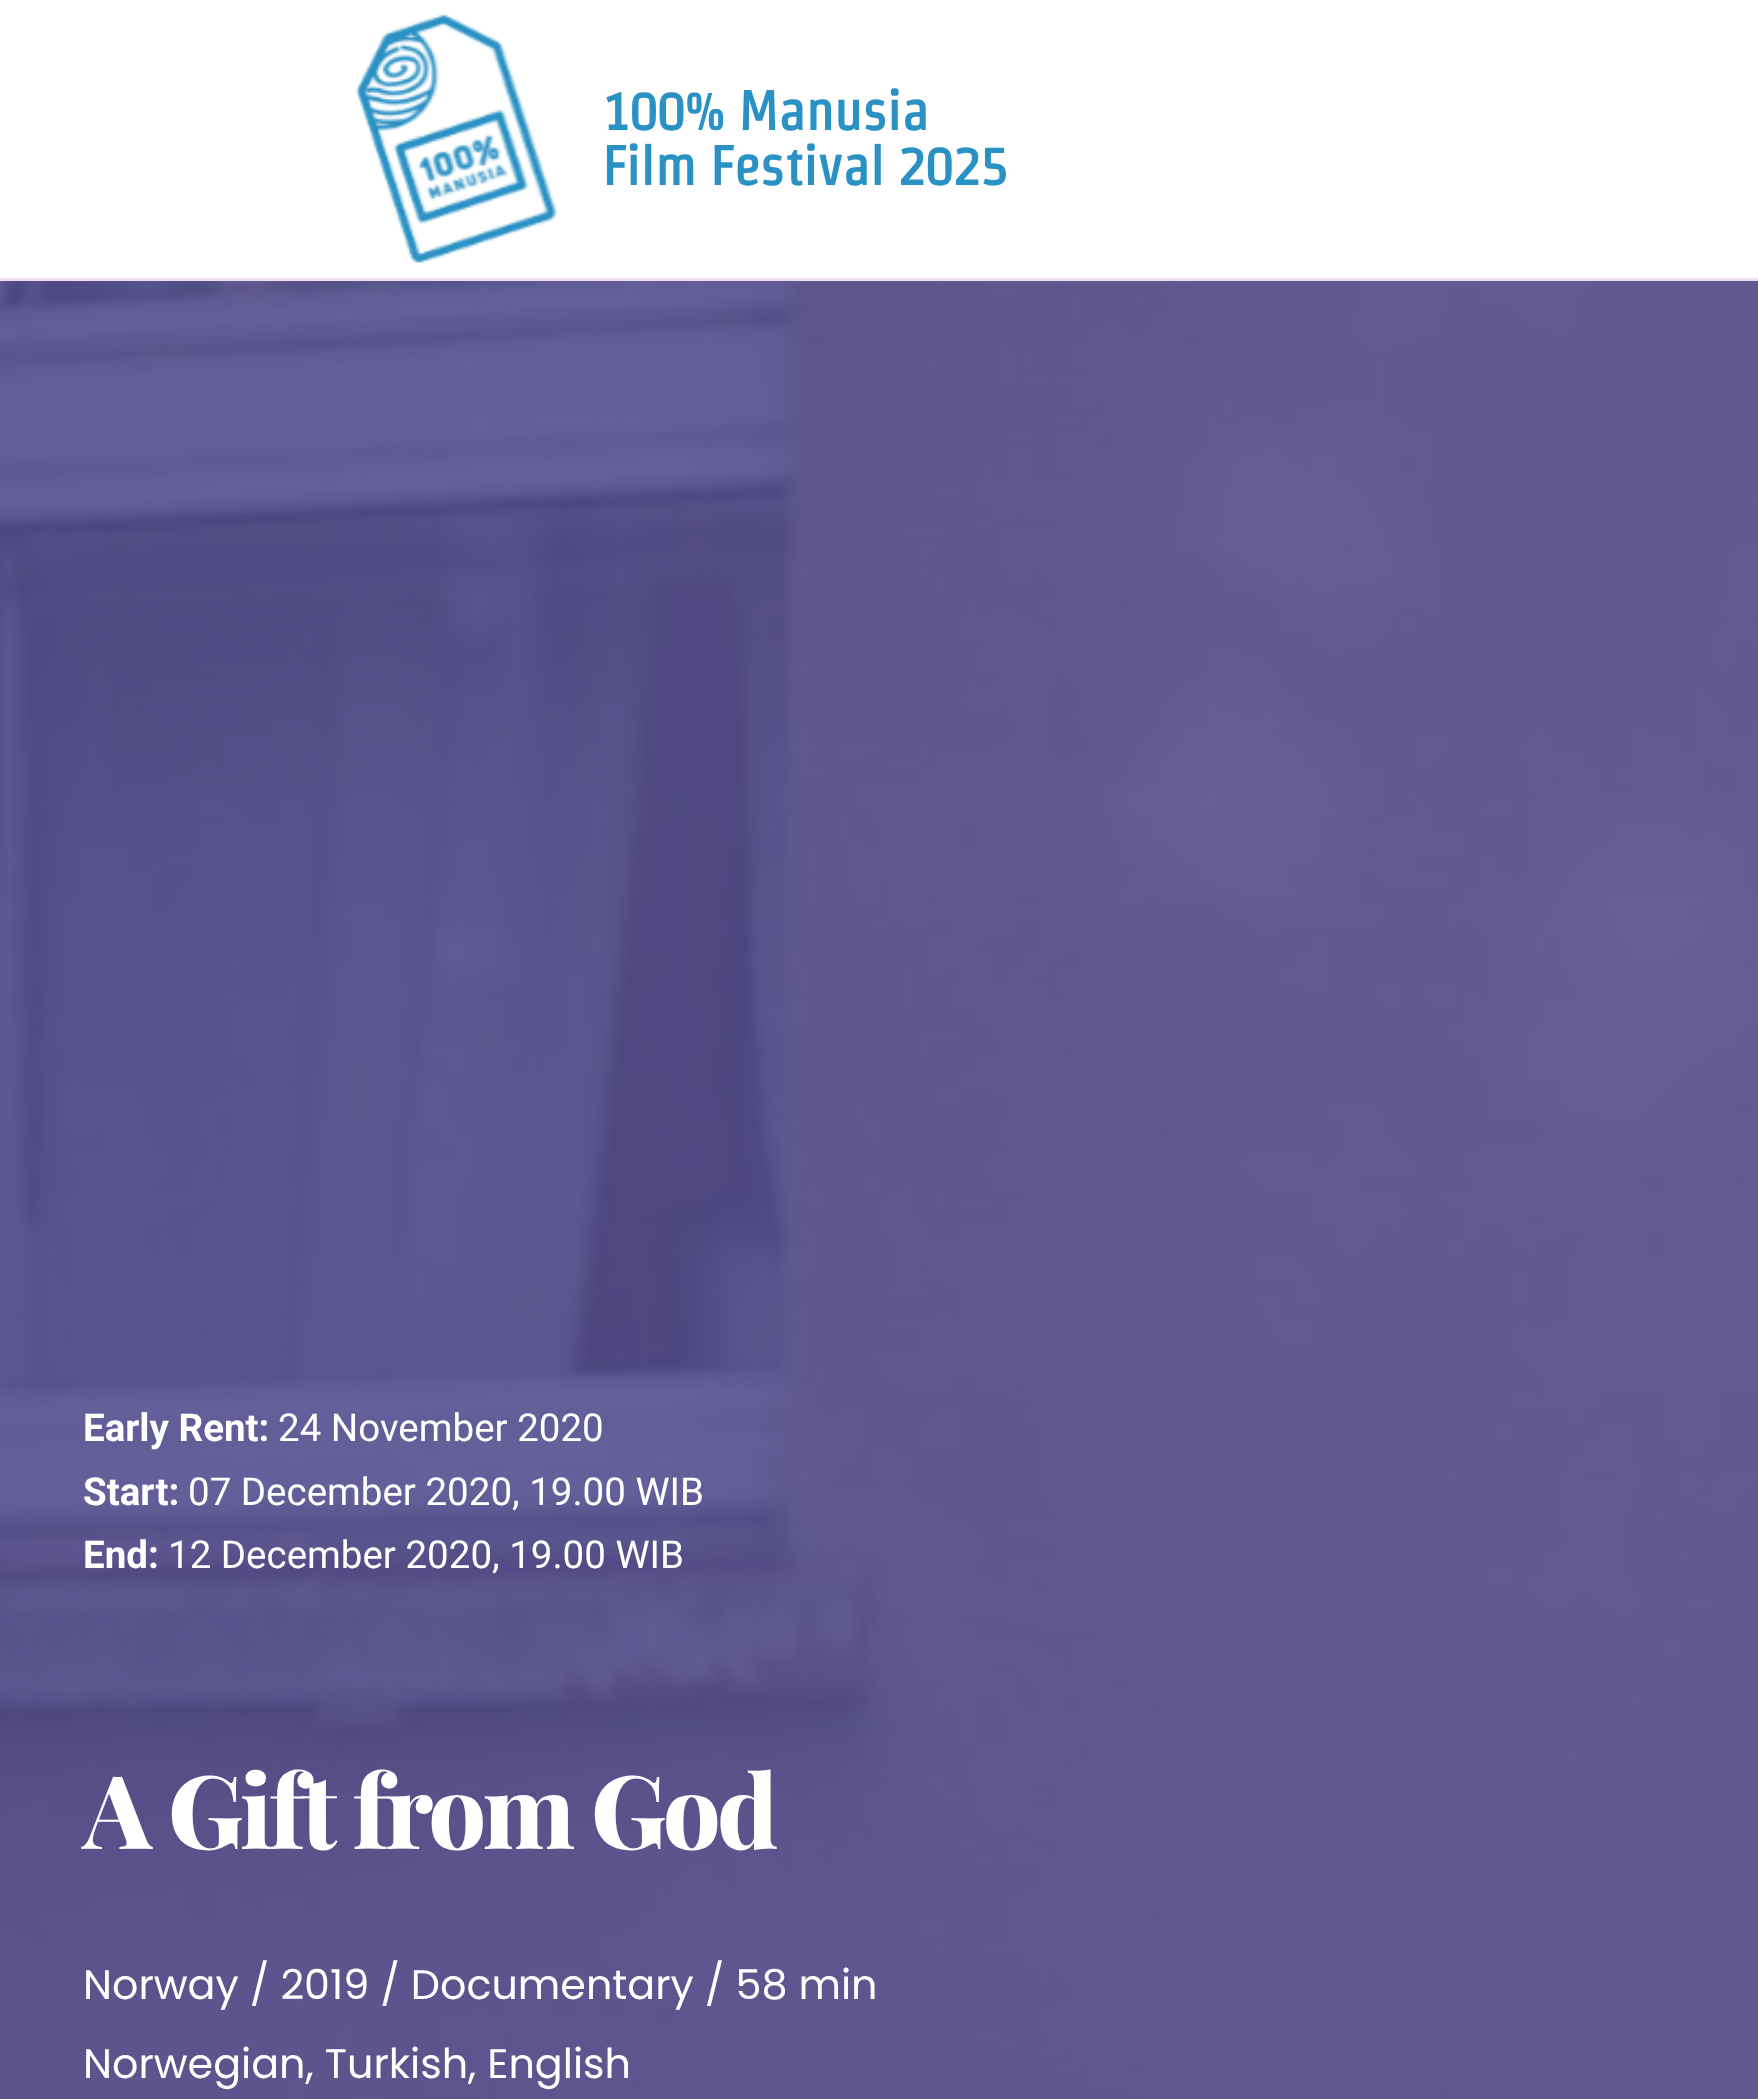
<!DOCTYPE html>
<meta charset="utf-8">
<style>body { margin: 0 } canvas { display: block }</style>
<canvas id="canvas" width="1758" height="2099"></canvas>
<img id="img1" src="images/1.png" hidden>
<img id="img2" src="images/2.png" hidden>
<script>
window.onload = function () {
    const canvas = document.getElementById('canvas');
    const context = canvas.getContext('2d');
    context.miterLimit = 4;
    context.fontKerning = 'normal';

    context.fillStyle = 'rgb(255, 255, 255)';
    context.fillRect(0, 0, 1758, 2099);
    context.fillStyle = 'rgb(241, 225, 244)';
    context.fillRect(0, 278, 1758, 3);
    context.drawImage(document.getElementById('img1'), 355, 14, 203, 249);
    context.drawImage(document.getElementById('img2'), 0, 281, 1758, 1818);
    context.font = 'bold 55px Strait';
    context.fillStyle = 'rgb(41, 145, 196)';
    context.fillText('100% Manusia', 602, 130);
    context.fillText('Film Festival 2025', 602, 185);
    context.font = 'bold 38.5px Roboto';
    context.fillStyle = 'rgb(255, 255, 255)';
    context.fillText('Early Rent:', 83, 1441);
    context.font = '38.5px Roboto';
    context.fillText('24 November 2020', 278, 1441);
    context.font = 'bold 38.5px Roboto';
    context.fillText('Start:', 83, 1505);
    context.font = '38.5px Roboto';
    context.fillText('07 December 2020, 19.00 WIB', 188, 1505);
    context.font = 'bold 38.5px Roboto';
    context.fillText('End:', 83, 1568);
    context.font = '38.5px Roboto';
    context.fillText('12 December 2020, 19.00 WIB', 168, 1568);
    context.letterSpacing = '-3.8px';
    context.font = '800 101.75px Playfair Display';
    context.fillText('A Gift from God', 83, 1849);
    context.letterSpacing = '0px';
    context.font = '41.25px Poppins';
    context.fillText('Norway / 2019 / Documentary / 58 min', 83, 1999);
    context.fillText('Norwegian, Turkish, English', 83, 2078);
};
</script>
